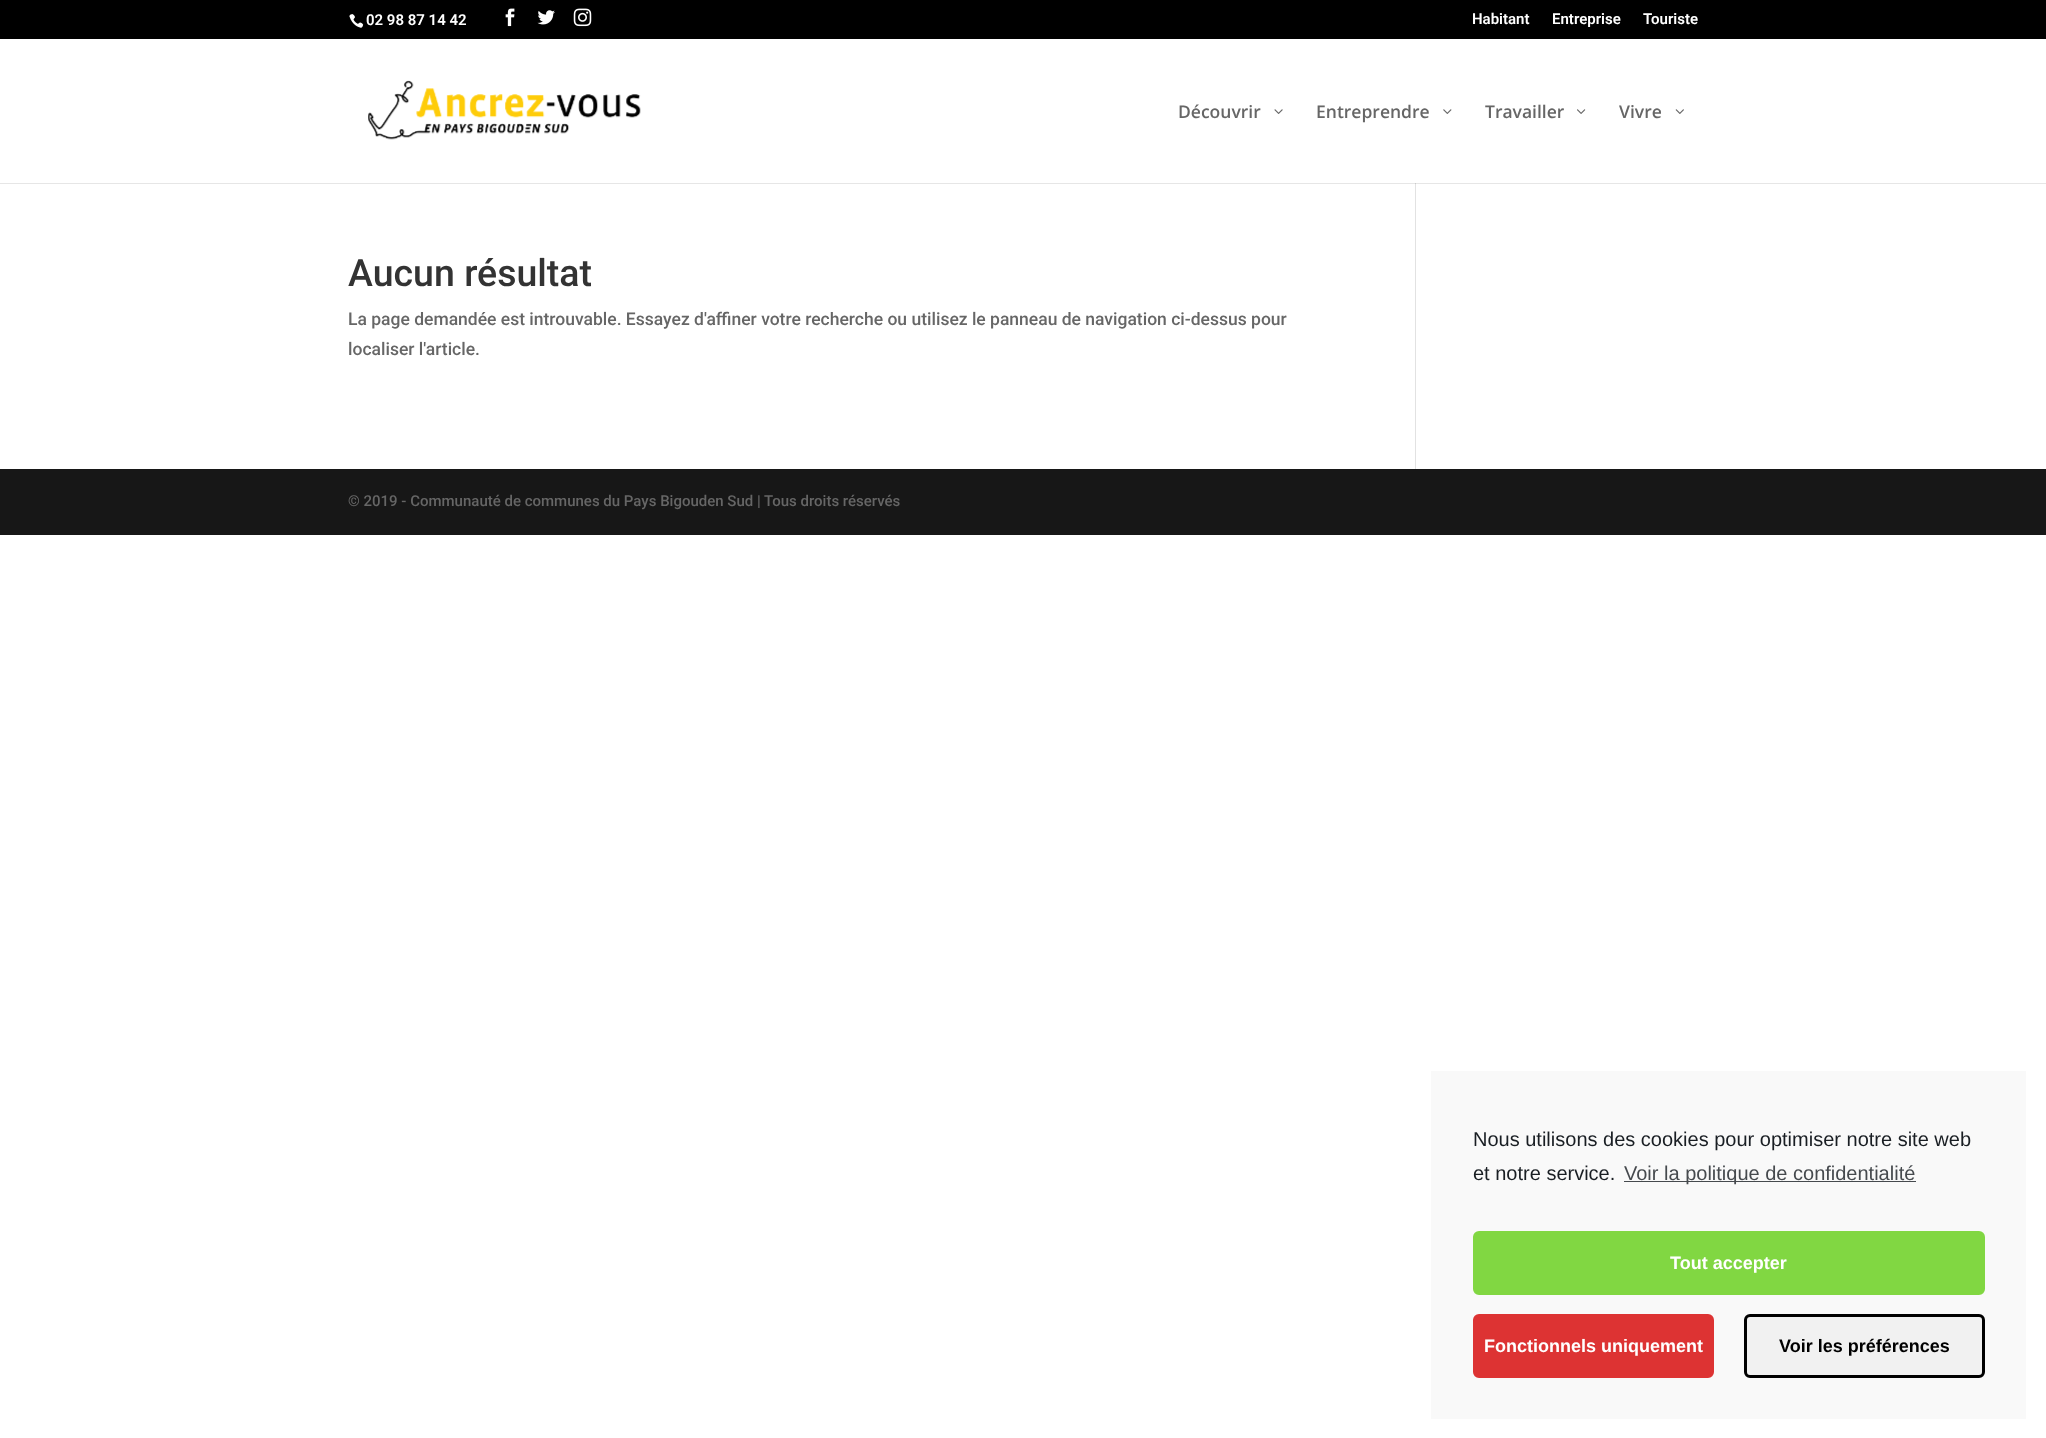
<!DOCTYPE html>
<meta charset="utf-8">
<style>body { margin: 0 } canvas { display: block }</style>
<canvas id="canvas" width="2046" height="1438"></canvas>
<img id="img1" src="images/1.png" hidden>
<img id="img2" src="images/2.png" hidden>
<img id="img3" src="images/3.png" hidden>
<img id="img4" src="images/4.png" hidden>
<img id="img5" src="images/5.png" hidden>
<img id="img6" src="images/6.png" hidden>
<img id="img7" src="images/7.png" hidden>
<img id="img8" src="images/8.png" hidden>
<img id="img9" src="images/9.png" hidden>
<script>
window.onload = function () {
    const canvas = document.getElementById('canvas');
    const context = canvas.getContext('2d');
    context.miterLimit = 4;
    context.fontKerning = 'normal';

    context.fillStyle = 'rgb(255, 255, 255)';
    context.fillRect(0, 0, 2046, 1438);
    context.fillStyle = 'rgb(230, 230, 230)';
    context.fillRect(0, 183, 2046, 1);
    context.fillStyle = 'rgb(0, 0, 0)';
    context.fillRect(0, 0, 2046, 39);
    context.drawImage(document.getElementById('img1'), 349, 14, 15, 14);
    context.drawImage(document.getElementById('img2'), 505, 8, 10, 19);
    context.drawImage(document.getElementById('img3'), 537, 10, 18, 15);
    context.drawImage(document.getElementById('img4'), 573, 8, 19, 19);
    context.drawImage(document.getElementById('img5'), 368, 80, 273, 60);
    context.drawImage(document.getElementById('img6'), 1274, 109, 9, 5);
    context.drawImage(document.getElementById('img7'), 1443, 109, 9, 5);
    context.drawImage(document.getElementById('img8'), 1577, 109, 9, 5);
    context.drawImage(document.getElementById('img9'), 1675, 109, 9, 5);
    context.fillStyle = 'rgb(226, 226, 226)';
    context.fillRect(1415, 183, 1, 286);
    context.fillStyle = 'rgb(203, 203, 203)';
    context.fillRect(1415, 183, 1, 1);
    context.fillStyle = 'rgb(23, 23, 23)';
    context.fillRect(0, 469, 2046, 66);
    context.fillStyle = 'rgb(249, 249, 249)';
    context.fillRect(1431, 1071, 595, 348);
    context.fillStyle = 'rgb(70, 74, 78)';
    context.fillRect(1624, 1181, 292, 1);
    context.fillStyle = 'rgb(129, 215, 66)';
    context.beginPath();
    context.roundRect(1474.5, 1232.5, 509, 61, 4.5);
    context.fill();
    context.strokeStyle = 'rgb(129, 215, 66)';
    context.lineWidth = 3;
    context.stroke();
    context.fillStyle = 'rgb(221, 51, 51)';
    context.beginPath();
    context.roundRect(1474.5, 1315.5, 238, 61, 4.5);
    context.fill();
    context.strokeStyle = 'rgb(221, 51, 51)';
    context.stroke();
    context.fillStyle = 'rgb(241, 241, 241)';
    context.beginPath();
    context.roundRect(1745.5, 1315.5, 238, 61, 4.5);
    context.fill();
    context.strokeStyle = 'rgb(0, 0, 0)';
    context.stroke();
    context.font = '600 15px Roboto';
    context.fillStyle = 'rgb(255, 255, 255)';
    context.fillText('02 98 87 14 42', 366, 25);
    context.fillText('Habitant', 1472, 24);
    context.fillText('Entreprise', 1552, 24);
    context.fillText('Touriste', 1643, 24);
    context.font = '600 17.5px Open Sans';
    context.fillStyle = 'rgb(102, 102, 102)';
    context.fillText('Découvrir', 1178, 118);
    context.fillText('Entreprendre', 1316, 118);
    context.fillText('Travailler', 1485, 118);
    context.fillText('Vivre', 1619, 118);
    context.font = '500 37.5px Roboto';
    context.fillStyle = 'rgb(51, 51, 51)';
    context.fillText('Aucun résultat', 348, 286);
    context.font = '500 17.5px Roboto';
    context.fillStyle = 'rgb(102, 102, 102)';
    context.fillText('La page demandée est introuvable. Essayez d\'affiner votre recherche ou utilisez le panneau de navigation ci-dessus pour', 348, 325);
    context.fillText('localiser l\'article.', 348, 355);
    context.font = '500 15px Roboto';
    context.fillText('© 2019 - Communauté de communes du Pays Bigouden Sud | Tous droits réservés', 348, 506);
    context.font = '20px Liberation Sans';
    context.fillStyle = 'rgb(25, 30, 35)';
    context.fillText('Nous utilisons des cookies pour optimiser notre site web', 1473, 1146);
    context.fillText('et notre service.', 1473, 1180);
    context.fillStyle = 'rgb(70, 74, 78)';
    context.fillText('Voir la politique de confidentialité', 1624, 1180);
    context.font = 'bold 18px Liberation Sans';
    context.fillStyle = 'rgb(255, 255, 255)';
    context.fillText('Tout accepter', 1670, 1269);
    context.fillText('Fonctionnels uniquement', 1484, 1352);
    context.fillStyle = 'rgb(0, 0, 0)';
    context.fillText('Voir les préférences', 1779, 1352);
};
</script>
